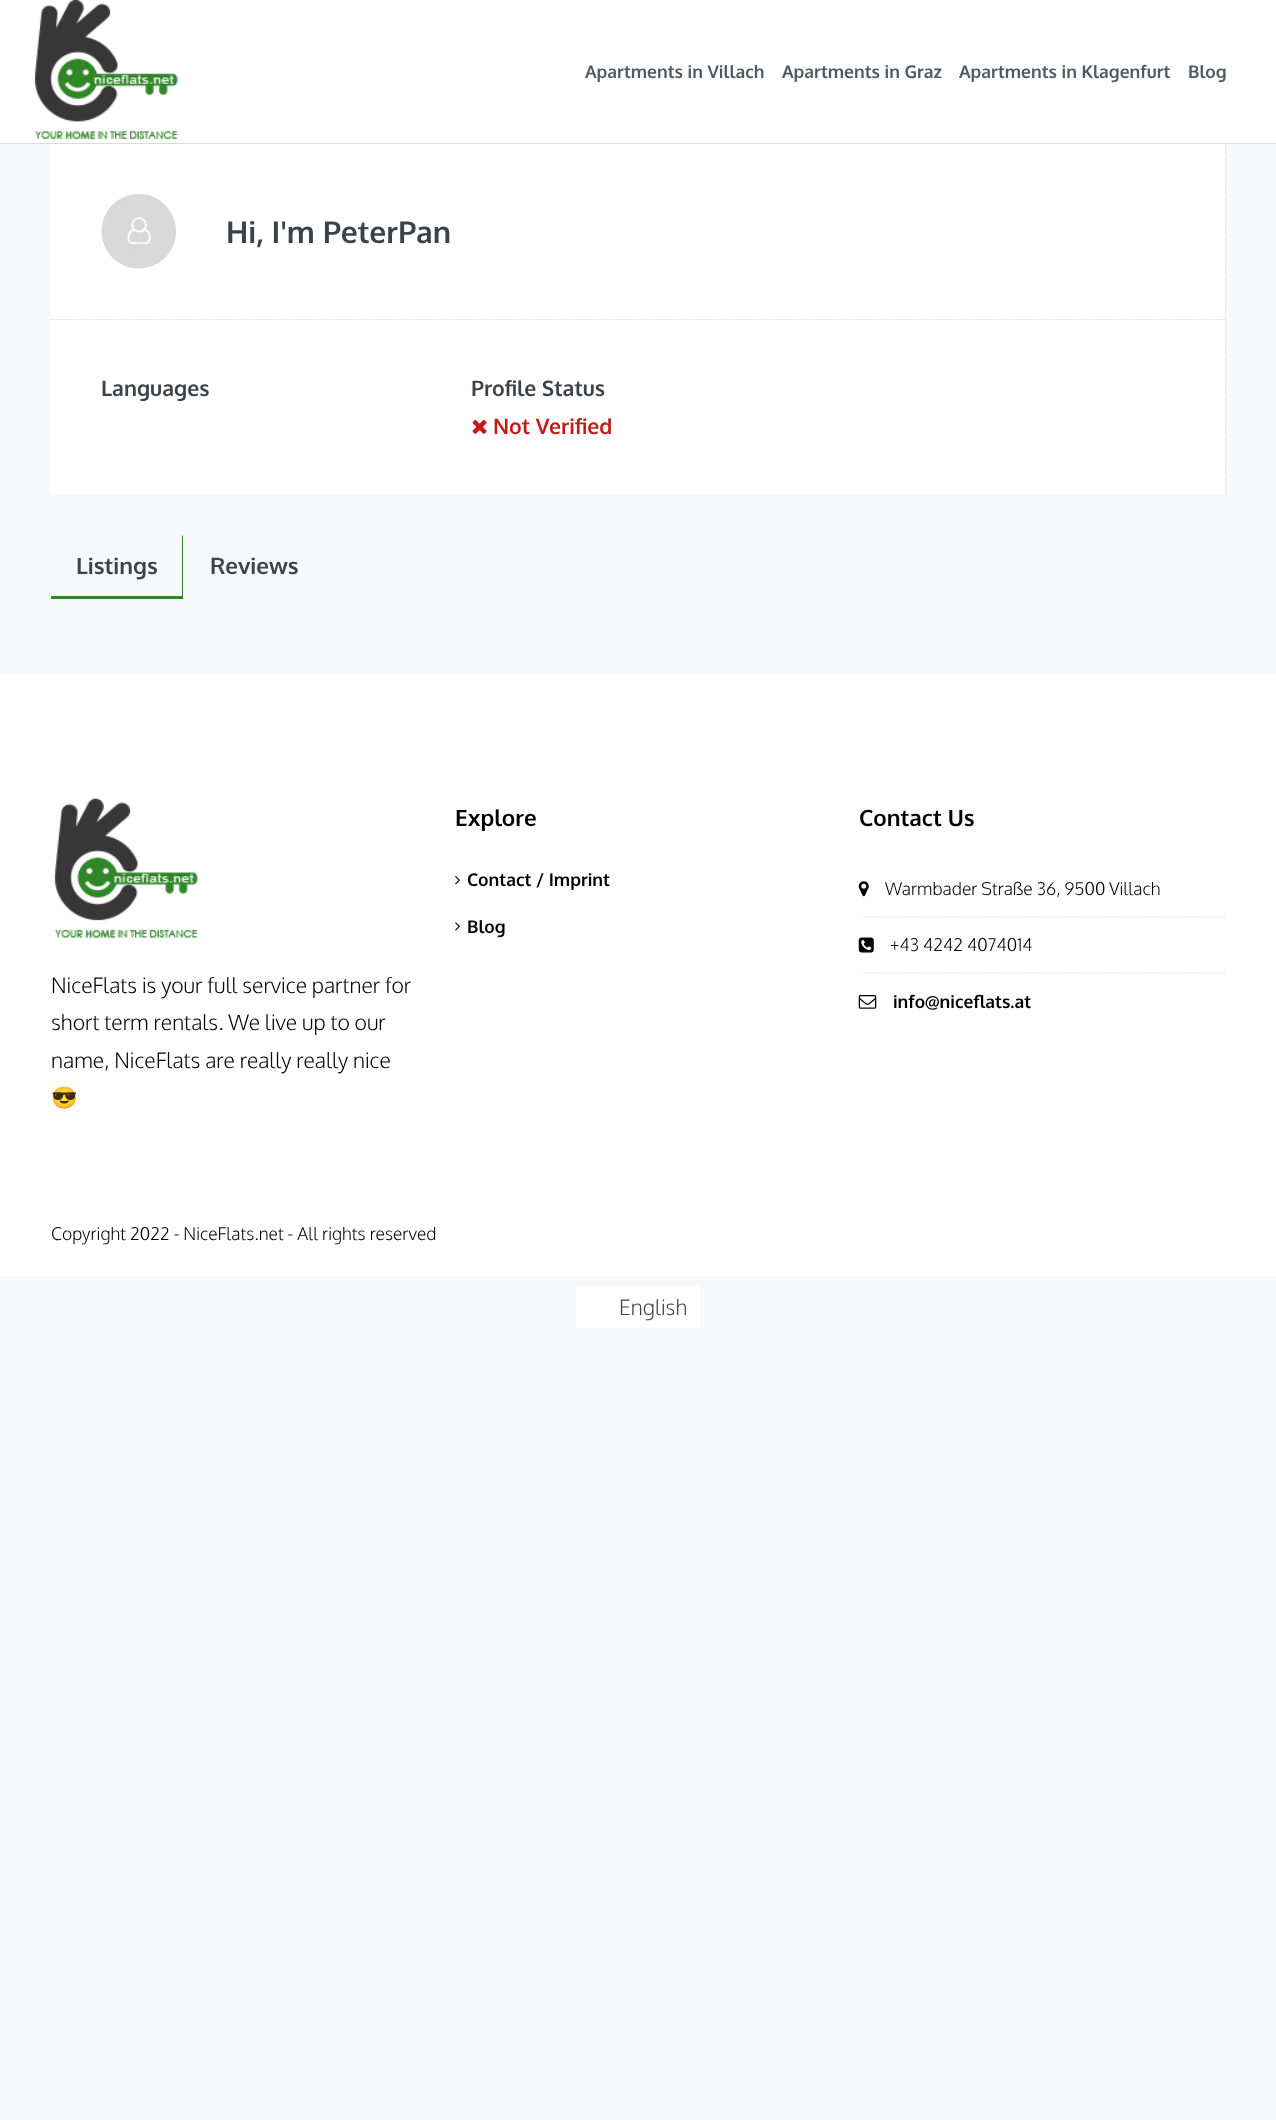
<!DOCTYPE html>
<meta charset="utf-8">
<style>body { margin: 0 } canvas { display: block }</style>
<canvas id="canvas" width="1276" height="2120"></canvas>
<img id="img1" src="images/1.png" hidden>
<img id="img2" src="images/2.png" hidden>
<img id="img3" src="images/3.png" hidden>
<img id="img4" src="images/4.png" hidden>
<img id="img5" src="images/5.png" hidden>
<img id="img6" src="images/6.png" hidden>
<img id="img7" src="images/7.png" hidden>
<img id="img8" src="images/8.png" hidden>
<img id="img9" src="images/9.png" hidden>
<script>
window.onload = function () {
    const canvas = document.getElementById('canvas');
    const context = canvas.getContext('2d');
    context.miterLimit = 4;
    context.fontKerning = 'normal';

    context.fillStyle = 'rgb(247, 248, 249)';
    context.fillRect(0, 0, 1276, 2120);
    context.fillStyle = 'rgb(255, 255, 255)';
    context.fillRect(0, 0, 1276, 143);
    context.fillStyle = 'rgb(216, 220, 225)';
    context.fillRect(0, 143, 1276, 1);
    context.drawImage(document.getElementById('img1'), 34, 0, 144, 140);
    context.fillStyle = 'rgb(255, 255, 255)';
    context.fillRect(51, 144, 1175, 351);
    context.beginPath();
    context.moveTo(1225.5, 144);
    context.lineTo(1225.5, 495);
    context.strokeStyle = 'rgb(216, 220, 225)';
    context.lineWidth = 1.2;
    context.setLineDash([1.25, 1.25]);
    context.stroke();
    context.beginPath();
    context.moveTo(51, 319.5);
    context.lineTo(1225, 319.5);
    context.stroke();
    context.drawImage(document.getElementById('img2'), 101, 194, 75, 75);
    context.drawImage(document.getElementById('img3'), 472, 419, 15, 15);
    context.fillStyle = 'rgb(48, 135, 38)';
    context.beginPath();
    context.moveTo(51, 596);
    context.lineTo(51, 599);
    context.lineTo(183, 599);
    context.lineTo(183, 538);
    context.bezierCurveTo(183, 537, 183, 536, 182, 535);
    context.lineTo(182, 596);
    context.closePath();
    context.fill();
    context.fillStyle = 'rgb(255, 255, 255)';
    context.fillRect(0, 674, 1276, 602);
    context.drawImage(document.getElementById('img4'), 455, 876, 5, 9);
    context.drawImage(document.getElementById('img5'), 455, 922, 5, 9);
    context.beginPath();
    context.moveTo(859, 917);
    context.lineTo(1225, 917);
    context.stroke();
    context.drawImage(document.getElementById('img6'), 858, 881, 11, 16);
    context.beginPath();
    context.moveTo(859, 973);
    context.lineTo(1225, 973);
    context.stroke();
    context.drawImage(document.getElementById('img7'), 858, 937, 16, 16);
    context.drawImage(document.getElementById('img8'), 858, 995, 19, 14);
    context.drawImage(document.getElementById('img9'), 54, 798, 144, 141);
    context.fillRect(576, 1286, 124, 42);
    context.font = 'bold 17.5px Oxygen';
    context.fillStyle = 'rgb(79, 89, 98)';
    context.fillText('Apartments in Villach', 585, 78);
    context.fillText('Apartments in Graz', 782, 78);
    context.fillText('Apartments in Klagenfurt', 959, 78);
    context.fillText('Blog', 1188, 78);
    context.font = 'bold 30px Oxygen';
    context.fillStyle = 'rgb(59, 66, 73)';
    context.fillText('Hi, I\'m PeterPan', 226, 243);
    context.font = 'bold 21.25px Oxygen';
    context.fillText('Languages', 101, 396);
    context.fillText('Profile Status', 471, 396);
    context.fillStyle = 'rgb(195, 27, 27)';
    context.fillText('Not Verified', 493, 434);
    context.font = 'bold 22.5px Oxygen';
    context.fillStyle = 'rgb(59, 66, 73)';
    context.fillText('Listings', 76, 574);
    context.fillText('Reviews', 210, 574);
    context.fillStyle = 'rgb(0, 0, 0)';
    context.fillText('Explore', 455, 826);
    context.font = 'bold 17.5px Oxygen';
    context.fillText('Contact / Imprint', 467, 886);
    context.fillText('Blog', 467, 933);
    context.font = 'bold 22.5px Oxygen';
    context.fillText('Contact Us', 859, 826);
    context.font = '300 17.5px Oxygen';
    context.fillText('Warmbader Straße 36, 9500 Villach', 885, 895);
    context.fillText('+43 4242 4074014', 890, 951);
    context.font = 'bold 17.5px Oxygen';
    context.fillText('info@niceflats.at', 893, 1008);
    context.font = '300 21.25px Oxygen';
    context.fillText('NiceFlats is your full service partner for', 51, 993);
    context.fillText('short term rentals. We live up to our', 51, 1030);
    context.fillText('name, NiceFlats are really really nice', 51, 1068);
    context.font = '21.25px Noto Color Emoji';
    context.fillText('😎', 51, 1105);
    context.font = '300 17.5px Oxygen';
    context.fillText('Copyright 2022 - NiceFlats.net - All rights reserved', 51, 1240);
    context.font = '300 21.25px Oxygen';
    context.fillStyle = 'rgb(68, 68, 68)';
    context.fillText('English', 619, 1315);
};
</script>
